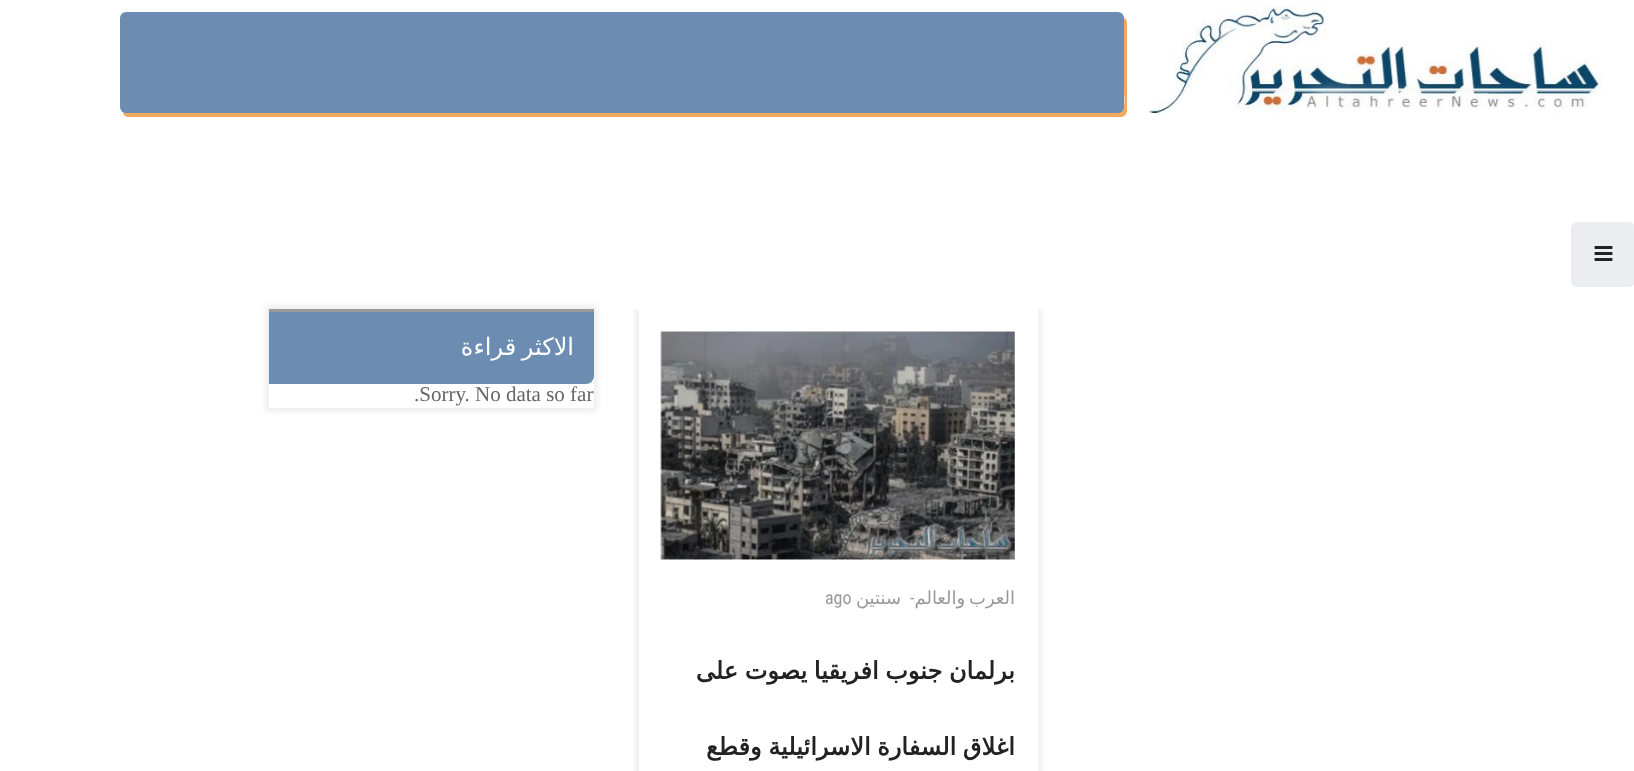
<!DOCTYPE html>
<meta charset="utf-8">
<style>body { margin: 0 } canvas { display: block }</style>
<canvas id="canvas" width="1634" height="771"></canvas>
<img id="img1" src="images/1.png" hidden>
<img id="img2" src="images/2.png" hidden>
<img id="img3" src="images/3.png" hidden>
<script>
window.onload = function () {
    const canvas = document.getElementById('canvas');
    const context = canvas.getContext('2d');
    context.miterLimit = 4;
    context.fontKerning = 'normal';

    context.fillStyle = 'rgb(255, 255, 255)';
    context.fillRect(0, 0, 1634, 771);
    context.drawImage(document.getElementById('img1'), 1147, 6, 456, 107);
    context.fillStyle = 'rgb(241, 169, 96)';
    context.beginPath();
    context.moveTo(123, 112);
    context.bezierCurveTo(123, 115, 126, 117, 129, 117);
    context.lineTo(1121, 117);
    context.bezierCurveTo(1124, 117, 1127, 114, 1127, 111);
    context.lineTo(1127, 23);
    context.bezierCurveTo(1127, 21, 1126, 18, 1123, 18);
    context.lineTo(1124, 92);
    context.bezierCurveTo(1124, 95, 1127, 112, 1118, 112);
    context.lineTo(124, 112);
    context.closePath();
    context.fill();
    context.fillStyle = 'rgb(109, 140, 177)';
    context.beginPath();
    context.roundRect(120, 12, 1004, 101, 6);
    context.fill();
    context.fillStyle = 'rgb(236, 237, 241)';
    context.beginPath();
    context.roundRect(1571, 222, 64, 65, 6);
    context.fill();
    context.drawImage(document.getElementById('img2'), 1594, 246, 19, 15);
    context.save();
    context.beginPath();
    context.moveTo(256, 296);
    context.lineTo(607, 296);
    context.lineTo(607, 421);
    context.lineTo(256, 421);
    context.closePath();
    context.moveTo(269, 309);
    context.lineTo(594, 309);
    context.lineTo(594, 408);
    context.lineTo(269, 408);
    context.closePath();
    context.clip('evenodd');
    context.fillStyle = 'rgb(235, 235, 235)';
    context.filter = 'blur(3px)';
    context.beginPath();
    context.rect(266, 306, 331, 105);
    context.fill();
    context.filter = 'none';
    context.restore();
    context.fillStyle = 'rgb(109, 140, 178)';
    context.beginPath();
    context.roundRect(269, 309, 325, 75, [0, 0, 8, 0]);
    context.fill();
    context.fillStyle = 'rgb(152, 153, 155)';
    context.fillRect(269, 309, 325, 3);
    context.save();
    context.beginPath();
    context.rect(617, 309, 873, 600);
    context.clip();
    context.beginPath();
    context.moveTo(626, 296);
    context.lineTo(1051, 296);
    context.lineTo(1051, 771);
    context.lineTo(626, 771);
    context.closePath();
    context.moveTo(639, 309);
    context.lineTo(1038, 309);
    context.lineTo(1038, 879);
    context.lineTo(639, 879);
    context.closePath();
    context.clip('evenodd');
    context.fillStyle = 'rgb(235, 235, 235)';
    context.filter = 'blur(3px)';
    context.beginPath();
    context.rect(636, 306, 405, 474);
    context.fill();
    context.filter = 'none';
    context.restore();
    context.drawImage(document.getElementById('img3'), 660, 331, 355, 229);
    context.wordSpacing = '-2px';
    context.direction = 'rtl';
    context.font = '24px DejaVu Sans';
    context.fillStyle = 'rgb(255, 255, 255)';
    context.fillText('الاكثر قراءة', 574, 355);
    context.wordSpacing = '0px';
    context.direction = 'ltr';
    context.font = '21px Liberation Serif';
    context.fillStyle = 'rgb(102, 102, 102)';
    context.fillText('.Sorry. No data so far', 414, 401);
    context.wordSpacing = '-2px';
    context.direction = 'rtl';
    context.font = '18px DejaVu Sans';
    context.fillStyle = 'rgb(153, 153, 153)';
    context.fillText('العرب والعالم', 1015, 604);
    context.wordSpacing = '0px';
    context.direction = 'ltr';
    context.font = '18px Roboto Condensed';
    context.fillText('-', 910, 604);
    context.direction = 'rtl';
    context.font = '18px DejaVu Sans';
    context.fillText('سنتين', 901, 604);
    context.direction = 'ltr';
    context.font = '18px Roboto Condensed';
    context.fillText('ago', 825, 604);
    context.wordSpacing = '-1px';
    context.direction = 'rtl';
    context.font = 'bold 24px DejaVu Sans';
    context.fillStyle = 'rgb(34, 34, 34)';
    context.fillText('برلمان جنوب افريقيا يصوت على', 1015, 679);
    context.fillText('اغلاق السفارة الاسرائيلية وقطع', 1015, 755);
};
</script>
